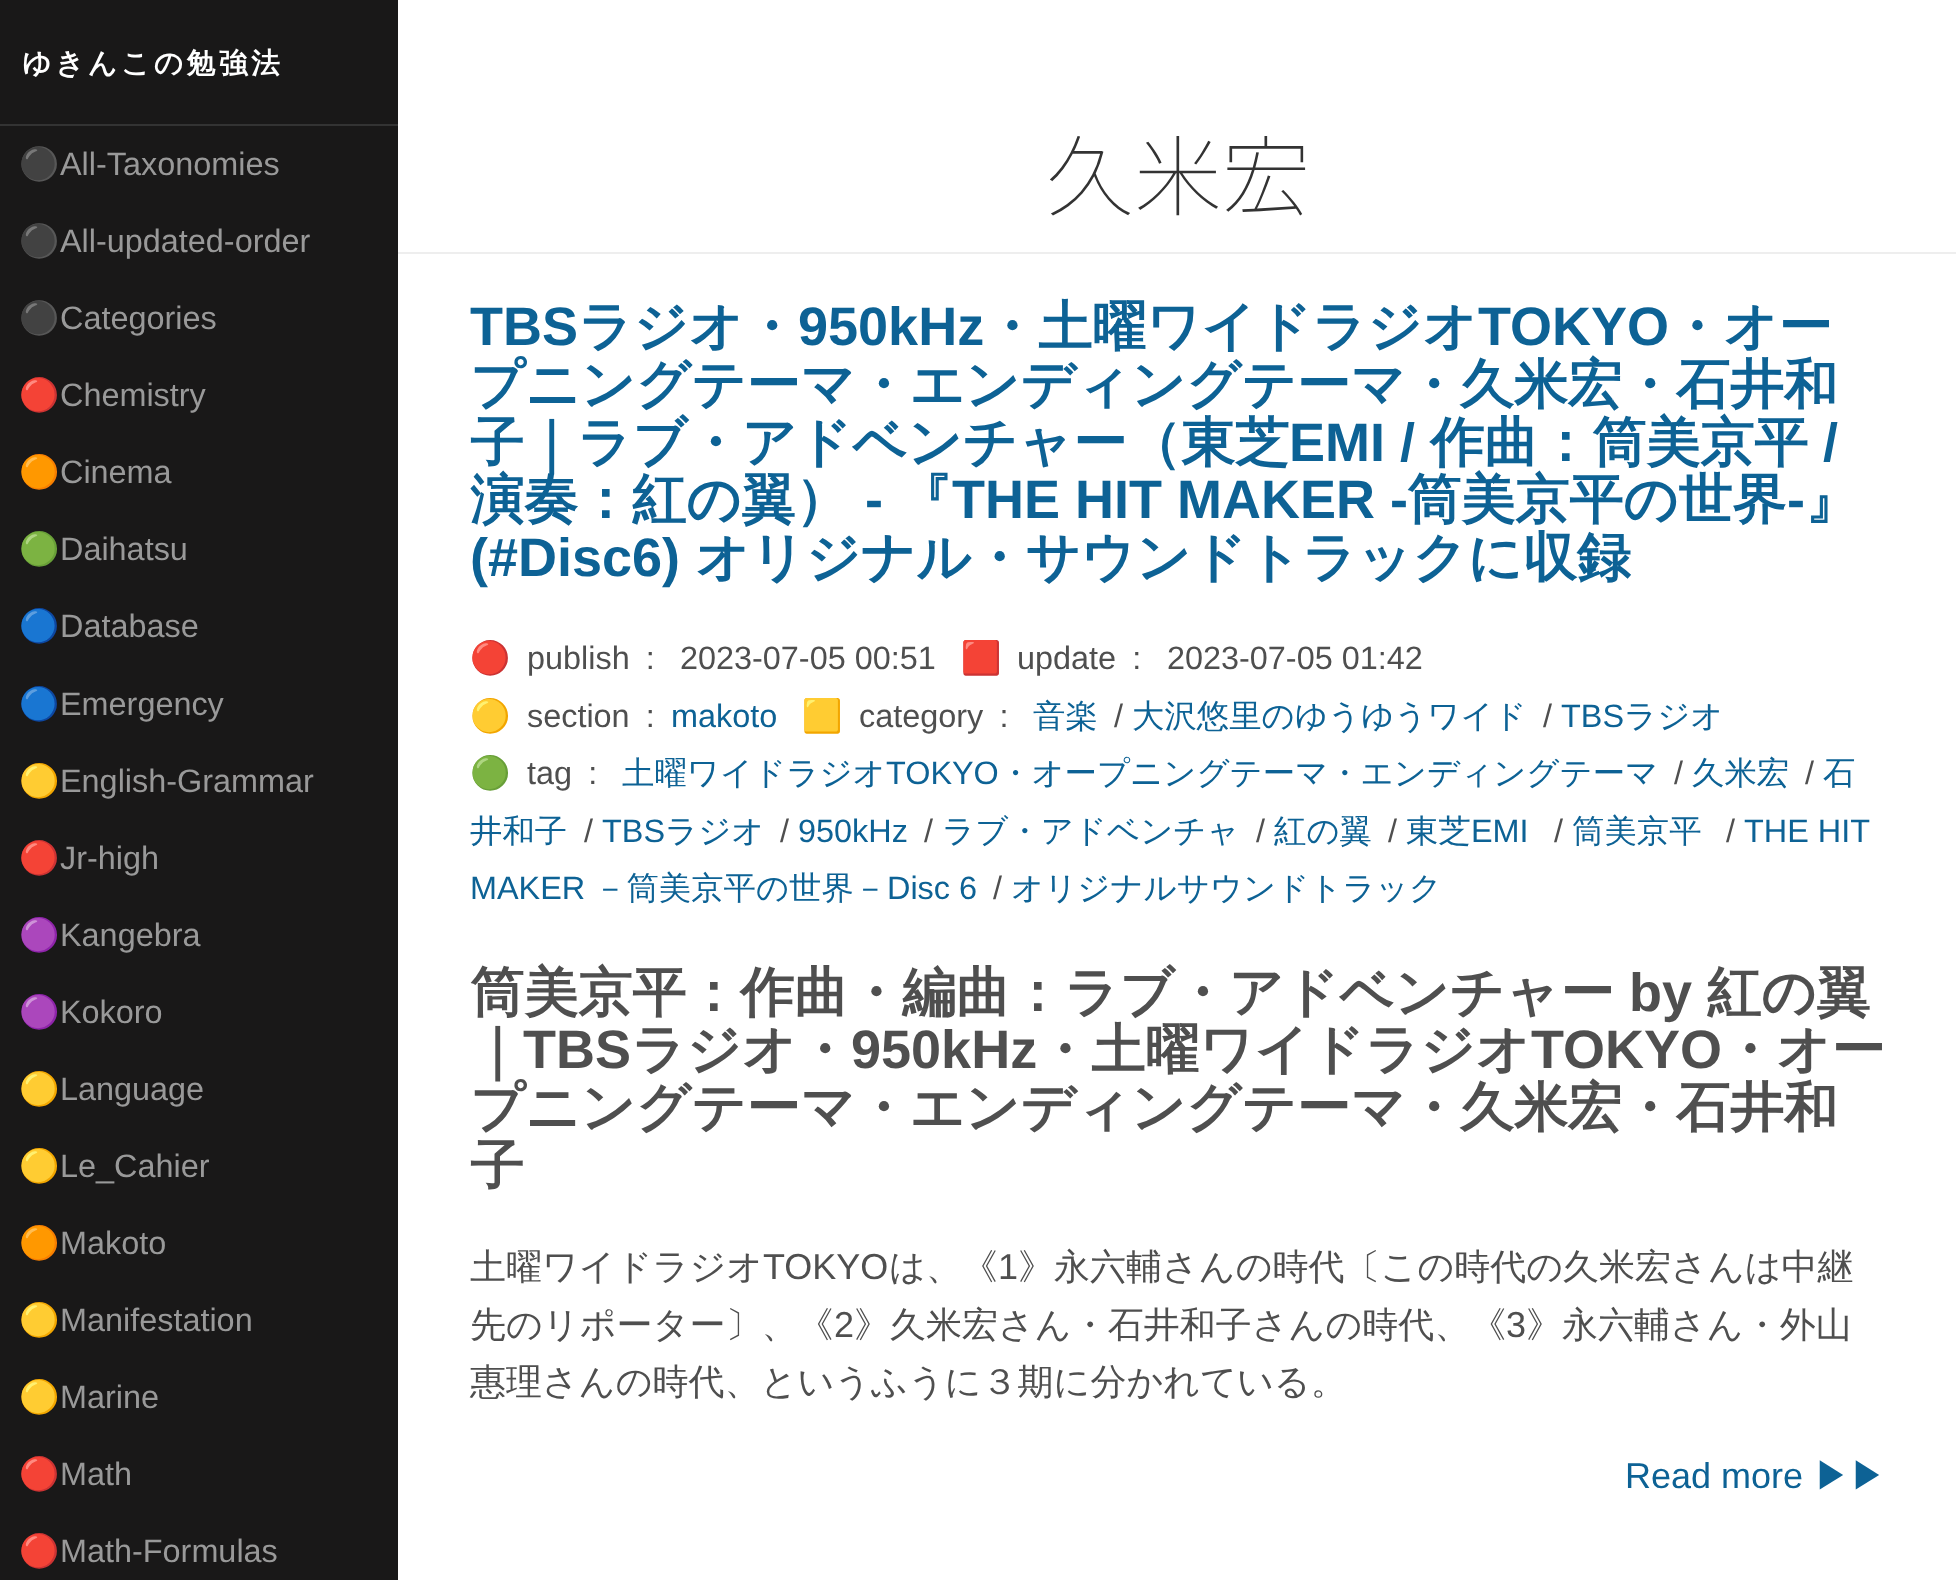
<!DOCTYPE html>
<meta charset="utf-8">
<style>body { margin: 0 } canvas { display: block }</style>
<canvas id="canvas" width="1956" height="1580"></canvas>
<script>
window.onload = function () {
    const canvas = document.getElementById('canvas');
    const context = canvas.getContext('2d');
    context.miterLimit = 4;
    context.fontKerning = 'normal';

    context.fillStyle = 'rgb(255, 255, 255)';
    context.fillRect(0, 0, 1956, 1580);
    context.fillStyle = 'rgb(25, 24, 24)';
    context.fillRect(0, 0, 398, 1580);
    context.fillStyle = 'rgb(51, 51, 51)';
    context.fillRect(0, 124, 398, 2);
    context.fillStyle = 'rgb(238, 238, 238)';
    context.fillRect(398, 252, 1558, 2);
    context.letterSpacing = '3.5px';
    context.font = 'bold 28.75px WenQuanYi Zen Hei';
    context.fillStyle = 'rgb(255, 255, 255)';
    context.fillText('ゆきんこの勉強法', 22, 73);
    context.letterSpacing = '0px';
    context.font = '32.4px Noto Color Emoji';
    context.fillStyle = 'rgb(153, 153, 153)';
    context.fillText('⚫', 19, 175);
    context.font = '32.4px Liberation Sans';
    context.fillText('All-Taxonomies', 60, 175);
    context.font = '32.4px Noto Color Emoji';
    context.fillText('⚫', 19, 252);
    context.font = '32.4px Liberation Sans';
    context.fillText('All-updated-order', 60, 252);
    context.font = '32.4px Noto Color Emoji';
    context.fillText('⚫', 19, 329);
    context.font = '32.4px Liberation Sans';
    context.fillText('Categories', 60, 329);
    context.font = '32.4px Noto Color Emoji';
    context.fillText('🔴', 19, 406);
    context.font = '32.4px Liberation Sans';
    context.fillText('Chemistry', 60, 406);
    context.font = '32.4px Noto Color Emoji';
    context.fillText('🟠', 19, 483);
    context.font = '32.4px Liberation Sans';
    context.fillText('Cinema', 60, 483);
    context.font = '32.4px Noto Color Emoji';
    context.fillText('🟢', 19, 560);
    context.font = '32.4px Liberation Sans';
    context.fillText('Daihatsu', 60, 560);
    context.font = '32.4px Noto Color Emoji';
    context.fillText('🔵', 19, 637);
    context.font = '32.4px Liberation Sans';
    context.fillText('Database', 60, 637);
    context.font = '32.4px Noto Color Emoji';
    context.fillText('🔵', 19, 715);
    context.font = '32.4px Liberation Sans';
    context.fillText('Emergency', 60, 715);
    context.font = '32.4px Noto Color Emoji';
    context.fillText('🟡', 19, 792);
    context.font = '32.4px Liberation Sans';
    context.fillText('English-Grammar', 60, 792);
    context.font = '32.4px Noto Color Emoji';
    context.fillText('🔴', 19, 869);
    context.font = '32.4px Liberation Sans';
    context.fillText('Jr-high', 60, 869);
    context.font = '32.4px Noto Color Emoji';
    context.fillText('🟣', 19, 946);
    context.font = '32.4px Liberation Sans';
    context.fillText('Kangebra', 60, 946);
    context.font = '32.4px Noto Color Emoji';
    context.fillText('🟣', 19, 1023);
    context.font = '32.4px Liberation Sans';
    context.fillText('Kokoro', 60, 1023);
    context.font = '32.4px Noto Color Emoji';
    context.fillText('🟡', 19, 1100);
    context.font = '32.4px Liberation Sans';
    context.fillText('Language', 60, 1100);
    context.font = '32.4px Noto Color Emoji';
    context.fillText('🟡', 19, 1177);
    context.font = '32.4px Liberation Sans';
    context.fillText('Le_Cahier', 60, 1177);
    context.font = '32.4px Noto Color Emoji';
    context.fillText('🟠', 19, 1254);
    context.font = '32.4px Liberation Sans';
    context.fillText('Makoto', 60, 1254);
    context.font = '32.4px Noto Color Emoji';
    context.fillText('🟡', 19, 1331);
    context.font = '32.4px Liberation Sans';
    context.fillText('Manifestation', 60, 1331);
    context.font = '32.4px Noto Color Emoji';
    context.fillText('🟡', 19, 1408);
    context.font = '32.4px Liberation Sans';
    context.fillText('Marine', 60, 1408);
    context.font = '32.4px Noto Color Emoji';
    context.fillText('🔴', 19, 1485);
    context.font = '32.4px Liberation Sans';
    context.fillText('Math', 60, 1485);
    context.font = '32.4px Noto Color Emoji';
    context.fillText('🔴', 19, 1562);
    context.font = '32.4px Liberation Sans';
    context.fillText('Math-Formulas', 60, 1562);
    context.font = '100 88px Noto Sans CJK JP';
    context.fillStyle = 'rgb(51, 51, 51)';
    context.fillText('久米宏', 1046, 209);
    context.font = 'bold 54px Liberation Sans';
    context.fillStyle = 'rgb(13, 98, 149)';
    context.fillText('TBS', 470, 345);
    context.font = 'bold 54px WenQuanYi Zen Hei';
    context.fillText('ラジオ・', 578, 345);
    context.font = 'bold 54px Liberation Sans';
    context.fillText('950kHz', 798, 345);
    context.font = 'bold 54px WenQuanYi Zen Hei';
    context.fillText('・土曜ワイドラジオ', 984, 345);
    context.font = 'bold 54px Liberation Sans';
    context.fillText('TOKYO', 1478, 345);
    context.font = 'bold 54px WenQuanYi Zen Hei';
    context.fillText('・オー', 1669, 345);
    context.fillText('プニングテーマ・エンディングテーマ・久米宏・石井和', 470, 403);
    context.fillText('子｜ラブ・アドベンチャー（東芝', 470, 461);
    context.font = 'bold 54px Liberation Sans';
    context.fillText('EMI /', 1289, 461);
    context.font = 'bold 54px WenQuanYi Zen Hei';
    context.fillText('作曲：筒美京平', 1430, 461);
    context.font = 'bold 54px Liberation Sans';
    context.fillText('/', 1823, 461);
    context.font = 'bold 54px WenQuanYi Zen Hei';
    context.fillText('演奏：紅の翼）', 470, 518);
    context.font = 'bold 54px Liberation Sans';
    context.fillText('-', 865, 518);
    context.font = 'bold 54px WenQuanYi Zen Hei';
    context.fillText('『', 898, 518);
    context.font = 'bold 54px Liberation Sans';
    context.fillText('THE HIT MAKER -', 952, 518);
    context.font = 'bold 54px WenQuanYi Zen Hei';
    context.fillText('筒美京平の世界', 1407, 518);
    context.font = 'bold 54px Liberation Sans';
    context.fillText('-', 1787, 518);
    context.font = 'bold 54px WenQuanYi Zen Hei';
    context.fillText('』', 1805, 518);
    context.font = 'bold 54px Liberation Sans';
    context.fillText('(#Disc6)', 470, 576);
    context.font = 'bold 54px WenQuanYi Zen Hei';
    context.fillText('オリジナル・サウンドトラックに収録', 695, 576);
    context.font = '32.4px Noto Color Emoji';
    context.fillStyle = 'rgb(79, 79, 79)';
    context.fillText('🔴', 470, 669);
    context.font = '32.4px Liberation Sans';
    context.fillText('publish :', 527, 669);
    context.fillText('2023-07-05 00:51', 680, 669);
    context.font = '32.4px Noto Color Emoji';
    context.fillText('🟥', 961, 669);
    context.font = '32.4px Liberation Sans';
    context.fillText('update :', 1017, 669);
    context.fillText('2023-07-05 01:42', 1167, 669);
    context.font = '32.4px Noto Color Emoji';
    context.fillText('🟡', 470, 727);
    context.font = '32.4px Liberation Sans';
    context.fillText('section :', 527, 727);
    context.fillStyle = 'rgb(13, 98, 149)';
    context.fillText('makoto', 671, 727);
    context.font = '32.4px Noto Color Emoji';
    context.fillStyle = 'rgb(79, 79, 79)';
    context.fillText('🟨', 802, 727);
    context.font = '32.4px Liberation Sans';
    context.fillText('category :', 859, 727);
    context.font = '500 32.4px WenQuanYi Zen Hei';
    context.fillStyle = 'rgb(13, 98, 149)';
    context.fillText('音楽', 1033, 727);
    context.font = '32.4px Liberation Sans';
    context.fillStyle = 'rgb(79, 79, 79)';
    context.fillText('/', 1114, 727);
    context.font = '500 32.4px WenQuanYi Zen Hei';
    context.fillStyle = 'rgb(13, 98, 149)';
    context.fillText('大沢悠里のゆうゆうワイド', 1132, 727);
    context.font = '32.4px Liberation Sans';
    context.fillStyle = 'rgb(79, 79, 79)';
    context.fillText('/', 1543, 727);
    context.fillStyle = 'rgb(13, 98, 149)';
    context.fillText('TBS', 1561, 727);
    context.font = '500 32.4px WenQuanYi Zen Hei';
    context.fillText('ラジオ', 1624, 727);
    context.font = '32.4px Noto Color Emoji';
    context.fillStyle = 'rgb(79, 79, 79)';
    context.fillText('🟢', 470, 784);
    context.font = '32.4px Liberation Sans';
    context.fillText('tag :', 527, 784);
    context.font = '500 32.4px WenQuanYi Zen Hei';
    context.fillStyle = 'rgb(13, 98, 149)';
    context.fillText('土曜ワイドラジオ', 622, 784);
    context.font = '32.4px Liberation Sans';
    context.fillText('TOKYO', 886, 784);
    context.font = '500 32.4px WenQuanYi Zen Hei';
    context.fillText('・オープニングテーマ・エンディングテーマ', 999, 784);
    context.font = '32.4px Liberation Sans';
    context.fillStyle = 'rgb(79, 79, 79)';
    context.fillText('/', 1674, 784);
    context.font = '500 32.4px WenQuanYi Zen Hei';
    context.fillStyle = 'rgb(13, 98, 149)';
    context.fillText('久米宏', 1692, 784);
    context.font = '32.4px Liberation Sans';
    context.fillStyle = 'rgb(79, 79, 79)';
    context.fillText('/', 1805, 784);
    context.font = '500 32.4px WenQuanYi Zen Hei';
    context.fillStyle = 'rgb(13, 98, 149)';
    context.fillText('石', 1823, 784);
    context.fillText('井和子', 470, 842);
    context.font = '32.4px Liberation Sans';
    context.fillStyle = 'rgb(79, 79, 79)';
    context.fillText('/', 584, 842);
    context.fillStyle = 'rgb(13, 98, 149)';
    context.fillText('TBS', 602, 842);
    context.font = '500 32.4px WenQuanYi Zen Hei';
    context.fillText('ラジオ', 665, 842);
    context.font = '32.4px Liberation Sans';
    context.fillStyle = 'rgb(79, 79, 79)';
    context.fillText('/', 780, 842);
    context.fillStyle = 'rgb(13, 98, 149)';
    context.fillText('950kHz', 798, 842);
    context.fillStyle = 'rgb(79, 79, 79)';
    context.fillText('/', 924, 842);
    context.font = '500 32.4px WenQuanYi Zen Hei';
    context.fillStyle = 'rgb(13, 98, 149)';
    context.fillText('ラブ・アドベンチャ', 942, 842);
    context.font = '32.4px Liberation Sans';
    context.fillStyle = 'rgb(79, 79, 79)';
    context.fillText('/', 1256, 842);
    context.font = '500 32.4px WenQuanYi Zen Hei';
    context.fillStyle = 'rgb(13, 98, 149)';
    context.fillText('紅の翼', 1274, 842);
    context.font = '32.4px Liberation Sans';
    context.fillStyle = 'rgb(79, 79, 79)';
    context.fillText('/', 1388, 842);
    context.font = '500 32.4px WenQuanYi Zen Hei';
    context.fillStyle = 'rgb(13, 98, 149)';
    context.fillText('東芝', 1406, 842);
    context.font = '32.4px Liberation Sans';
    context.fillText('EMI', 1471, 842);
    context.fillStyle = 'rgb(79, 79, 79)';
    context.fillText('/', 1554, 842);
    context.font = '500 32.4px WenQuanYi Zen Hei';
    context.fillStyle = 'rgb(13, 98, 149)';
    context.fillText('筒美京平', 1572, 842);
    context.font = '32.4px Liberation Sans';
    context.fillStyle = 'rgb(79, 79, 79)';
    context.fillText('/', 1726, 842);
    context.fillStyle = 'rgb(13, 98, 149)';
    context.fillText('THE HIT', 1744, 842);
    context.fillText('MAKER', 470, 899);
    context.font = '500 32.4px WenQuanYi Zen Hei';
    context.fillText('－筒美京平の世界－', 594, 899);
    context.font = '32.4px Liberation Sans';
    context.fillText('Disc 6', 887, 899);
    context.fillStyle = 'rgb(79, 79, 79)';
    context.fillText('/', 993, 899);
    context.font = '500 32.4px WenQuanYi Zen Hei';
    context.fillStyle = 'rgb(13, 98, 149)';
    context.fillText('オリジナルサウンドトラック', 1011, 899);
    context.font = 'bold 54px WenQuanYi Zen Hei';
    context.fillStyle = 'rgb(79, 79, 79)';
    context.fillText('筒美京平：作曲・編曲：ラブ・アドベンチャー', 470, 1011);
    context.font = 'bold 54px Liberation Sans';
    context.fillText('by', 1629, 1011);
    context.font = 'bold 54px WenQuanYi Zen Hei';
    context.fillText('紅の翼', 1707, 1011);
    context.fillText('｜', 470, 1068);
    context.font = 'bold 54px Liberation Sans';
    context.fillText('TBS', 523, 1068);
    context.font = 'bold 54px WenQuanYi Zen Hei';
    context.fillText('ラジオ・', 631, 1068);
    context.font = 'bold 54px Liberation Sans';
    context.fillText('950kHz', 851, 1068);
    context.font = 'bold 54px WenQuanYi Zen Hei';
    context.fillText('・土曜ワイドラジオ', 1037, 1068);
    context.font = 'bold 54px Liberation Sans';
    context.fillText('TOKYO', 1531, 1068);
    context.font = 'bold 54px WenQuanYi Zen Hei';
    context.fillText('・オー', 1722, 1068);
    context.fillText('プニングテーマ・エンディングテーマ・久米宏・石井和', 470, 1126);
    context.fillText('子', 470, 1184);
    context.font = '500 36px WenQuanYi Zen Hei';
    context.fillText('土曜ワイドラジオ', 470, 1279);
    context.font = '36px Liberation Sans';
    context.fillText('TOKYO', 763, 1279);
    context.font = '500 36px WenQuanYi Zen Hei';
    context.fillText('は、《', 889, 1279);
    context.font = '36px Liberation Sans';
    context.fillText('1', 998, 1279);
    context.font = '500 36px WenQuanYi Zen Hei';
    context.fillText('》永六輔さんの時代〔この時代の久米宏さんは中継', 1018, 1279);
    context.fillText('先のリポーター〕、《', 470, 1337);
    context.font = '36px Liberation Sans';
    context.fillText('2', 834, 1337);
    context.font = '500 36px WenQuanYi Zen Hei';
    context.fillText('》久米宏さん・石井和子さんの時代、《', 854, 1337);
    context.font = '36px Liberation Sans';
    context.fillText('3', 1506, 1337);
    context.font = '500 36px WenQuanYi Zen Hei';
    context.fillText('》永六輔さん・外山', 1526, 1337);
    context.fillText('惠理さんの時代、というふうに３期に分かれている。', 470, 1394);
    context.font = '36px Liberation Sans';
    context.fillStyle = 'rgb(13, 98, 149)';
    context.fillText('Read more', 1625, 1488);
    context.font = '500 36px WenQuanYi Zen Hei';
    context.fillText('▶▶', 1814, 1488);
};
</script>
